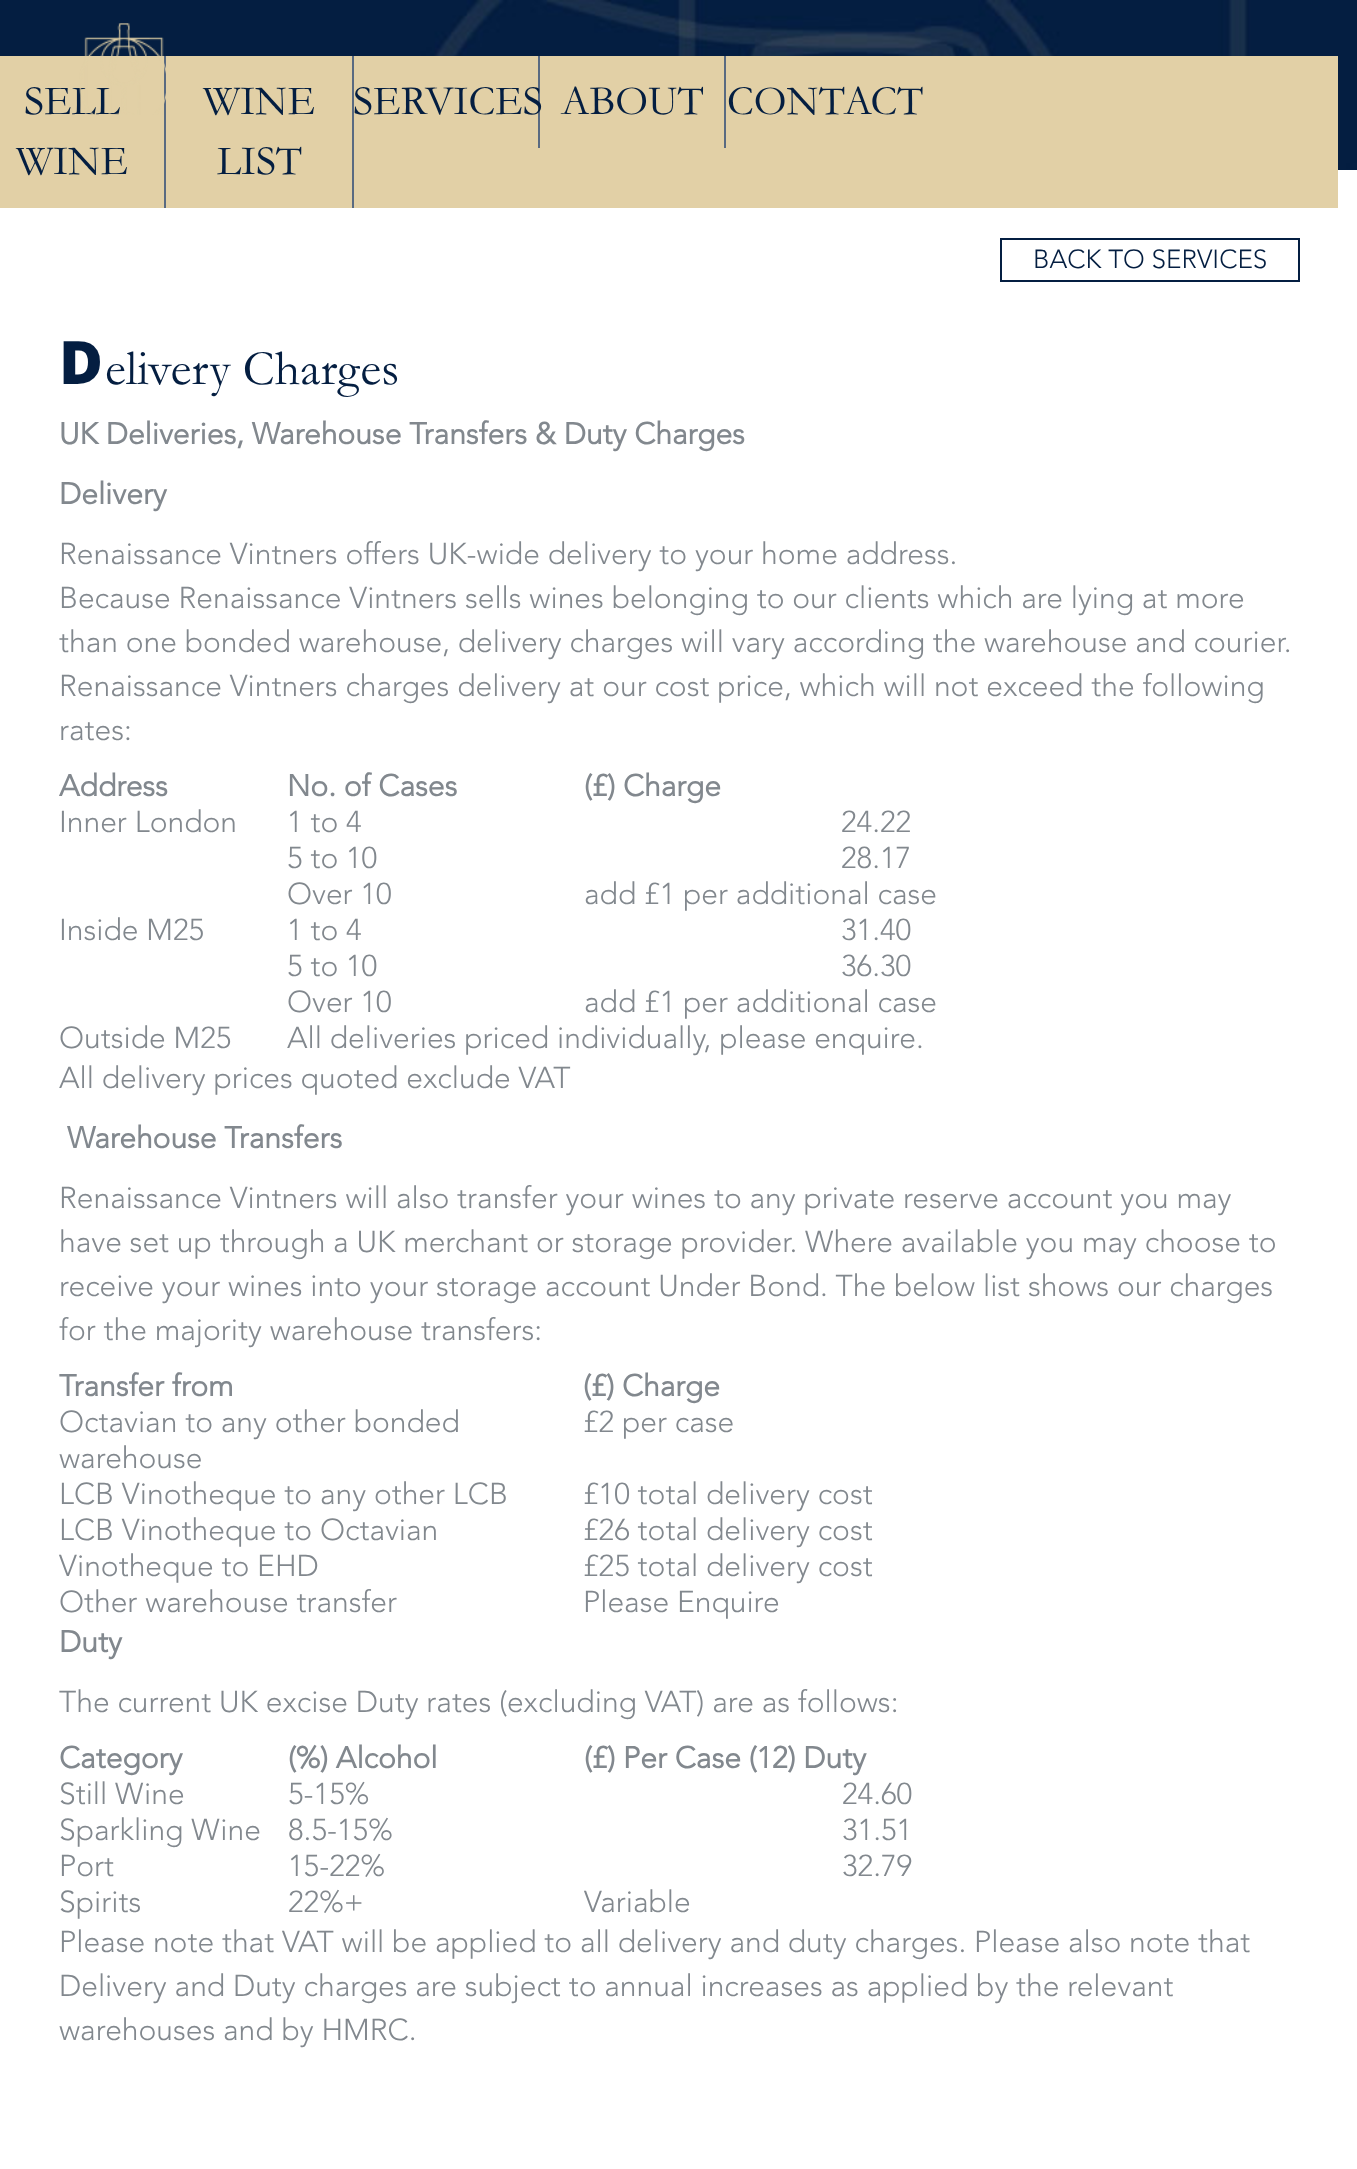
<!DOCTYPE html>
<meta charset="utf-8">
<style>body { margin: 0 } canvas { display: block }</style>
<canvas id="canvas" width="1357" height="2169"></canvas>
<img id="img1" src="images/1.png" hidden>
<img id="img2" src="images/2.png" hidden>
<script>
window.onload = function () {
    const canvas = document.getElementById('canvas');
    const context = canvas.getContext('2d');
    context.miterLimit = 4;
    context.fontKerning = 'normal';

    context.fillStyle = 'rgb(255, 255, 255)';
    context.fillRect(0, 0, 1357, 2169);
    context.drawImage(document.getElementById('img1'), 0, 0, 1357, 170);
    context.fillStyle = 'rgb(226, 208, 166)';
    context.fillRect(0, 56, 1338, 152);
    context.fillStyle = 'rgb(89, 106, 129)';
    context.fillRect(164, 56, 2, 152);
    context.fillRect(352, 56, 2, 152);
    context.fillRect(538, 56, 2, 92);
    context.fillRect(724, 56, 2, 92);
    context.strokeStyle = 'rgb(4, 30, 65)';
    context.lineWidth = 2;
    context.strokeRect(1001, 239, 298, 42);
    context.font = '42px Garamond';
    context.fillStyle = 'rgb(4, 30, 65)';
    context.fillText('SELL', 24, 114);
    context.drawImage(document.getElementById('img2'), 79, 23, 87, 92);
    context.fillText('WINE', 16, 174);
    context.fillText('WINE', 203, 114);
    context.fillText('LIST', 217, 174);
    context.fillText('SERVICES', 353, 114);
    context.fillText('ABOUT', 561, 114);
    context.fillText('CONTACT', 727, 114);
    context.font = '300 26px Avenir';
    context.fillText('BACK TO SERVICES', 1033, 268);
    context.font = '900 60px Noto Sans';
    context.fillText('D', 59, 384);
    context.font = '50px Garamond';
    context.fillText('elivery Charges', 105, 384);
    context.font = 'bold 30px Avenir';
    context.fillStyle = 'rgb(130, 136, 142)';
    context.fillText('UK Deliveries, Warehouse Transfers & Duty Charges', 59, 444);
    context.fillText('Delivery', 59, 504);
    context.font = '300 30px Avenir';
    context.fillText('Renaissance Vintners offers UK-wide delivery to your home address.', 59, 564);
    context.fillText('Because Renaissance Vintners sells wines belonging to our clients which are lying at more', 59, 608);
    context.fillText('than one bonded warehouse, delivery charges will vary according the warehouse and courier.', 59, 652);
    context.fillText('Renaissance Vintners charges delivery at our cost price, which will not exceed the following', 59, 696);
    context.fillText('rates:', 59, 740);
    context.font = 'bold 30px Avenir';
    context.fillText('Address', 59, 796);
    context.fillText('No. of Cases', 287, 796);
    context.fillText('(£) Charge', 584, 796);
    context.font = '300 30px Avenir';
    context.fillText('Inner London', 59, 832);
    context.fillText('1 to 4', 287, 832);
    context.fillText('24.22', 841, 832);
    context.fillText('5 to 10', 287, 868);
    context.fillText('28.17', 841, 868);
    context.fillText('Over 10', 287, 904);
    context.fillText('add £1 per additional case', 584, 904);
    context.fillText('Inside M25', 59, 940);
    context.fillText('1 to 4', 287, 940);
    context.fillText('31.40', 841, 940);
    context.fillText('5 to 10', 287, 976);
    context.fillText('36.30', 841, 976);
    context.fillText('Over 10', 287, 1012);
    context.fillText('add £1 per additional case', 584, 1012);
    context.fillText('Outside M25', 59, 1048);
    context.fillText('All deliveries priced individually, please enquire.', 287, 1048);
    context.fillText('All delivery prices quoted exclude VAT', 59, 1088);
    context.font = 'bold 30px Avenir';
    context.fillText('Warehouse Transfers', 67, 1148);
    context.font = '300 30px Avenir';
    context.fillText('Renaissance Vintners will also transfer your wines to any private reserve account you may', 59, 1208);
    context.fillText('have set up through a UK merchant or storage provider. Where available you may choose to', 59, 1252);
    context.fillText('receive your wines into your storage account Under Bond. The below list shows our charges', 59, 1296);
    context.fillText('for the majority warehouse transfers:', 59, 1340);
    context.font = 'bold 30px Avenir';
    context.fillText('Transfer from', 59, 1396);
    context.fillText('(£) Charge', 583, 1396);
    context.font = '300 30px Avenir';
    context.fillText('Octavian to any other bonded', 59, 1432);
    context.fillText('warehouse', 59, 1468);
    context.fillText('£2 per case', 583, 1432);
    context.fillText('LCB Vinotheque to any other LCB', 59, 1504);
    context.fillText('£10 total delivery cost', 583, 1504);
    context.fillText('LCB Vinotheque to Octavian', 59, 1540);
    context.fillText('£26 total delivery cost', 583, 1540);
    context.fillText('Vinotheque to EHD', 59, 1576);
    context.fillText('£25 total delivery cost', 583, 1576);
    context.fillText('Other warehouse transfer', 59, 1612);
    context.fillText('Please Enquire', 583, 1612);
    context.font = 'bold 30px Avenir';
    context.fillText('Duty', 59, 1652);
    context.font = '300 30px Avenir';
    context.fillText('The current UK excise Duty rates (excluding VAT) are as follows:', 59, 1712);
    context.font = 'bold 30px Avenir';
    context.fillText('Category', 59, 1768);
    context.fillText('(%) Alcohol', 288, 1768);
    context.fillText('(£) Per Case (12) Duty', 584, 1768);
    context.font = '300 30px Avenir';
    context.fillText('Still Wine', 59, 1804);
    context.fillText('5-15%', 288, 1804);
    context.fillText('24.60', 842, 1804);
    context.fillText('Sparkling Wine', 59, 1840);
    context.fillText('8.5-15%', 288, 1840);
    context.fillText('31.51', 842, 1840);
    context.fillText('Port', 59, 1876);
    context.fillText('15-22%', 288, 1876);
    context.fillText('32.79', 842, 1876);
    context.fillText('Spirits', 59, 1912);
    context.fillText('22%+', 288, 1912);
    context.fillText('Variable', 584, 1912);
    context.fillText('Please note that VAT will be applied to all delivery and duty charges. Please also note that', 59, 1952);
    context.fillText('Delivery and Duty charges are subject to annual increases as applied by the relevant', 59, 1996);
    context.fillText('warehouses and by HMRC.', 59, 2040);
};
</script>
